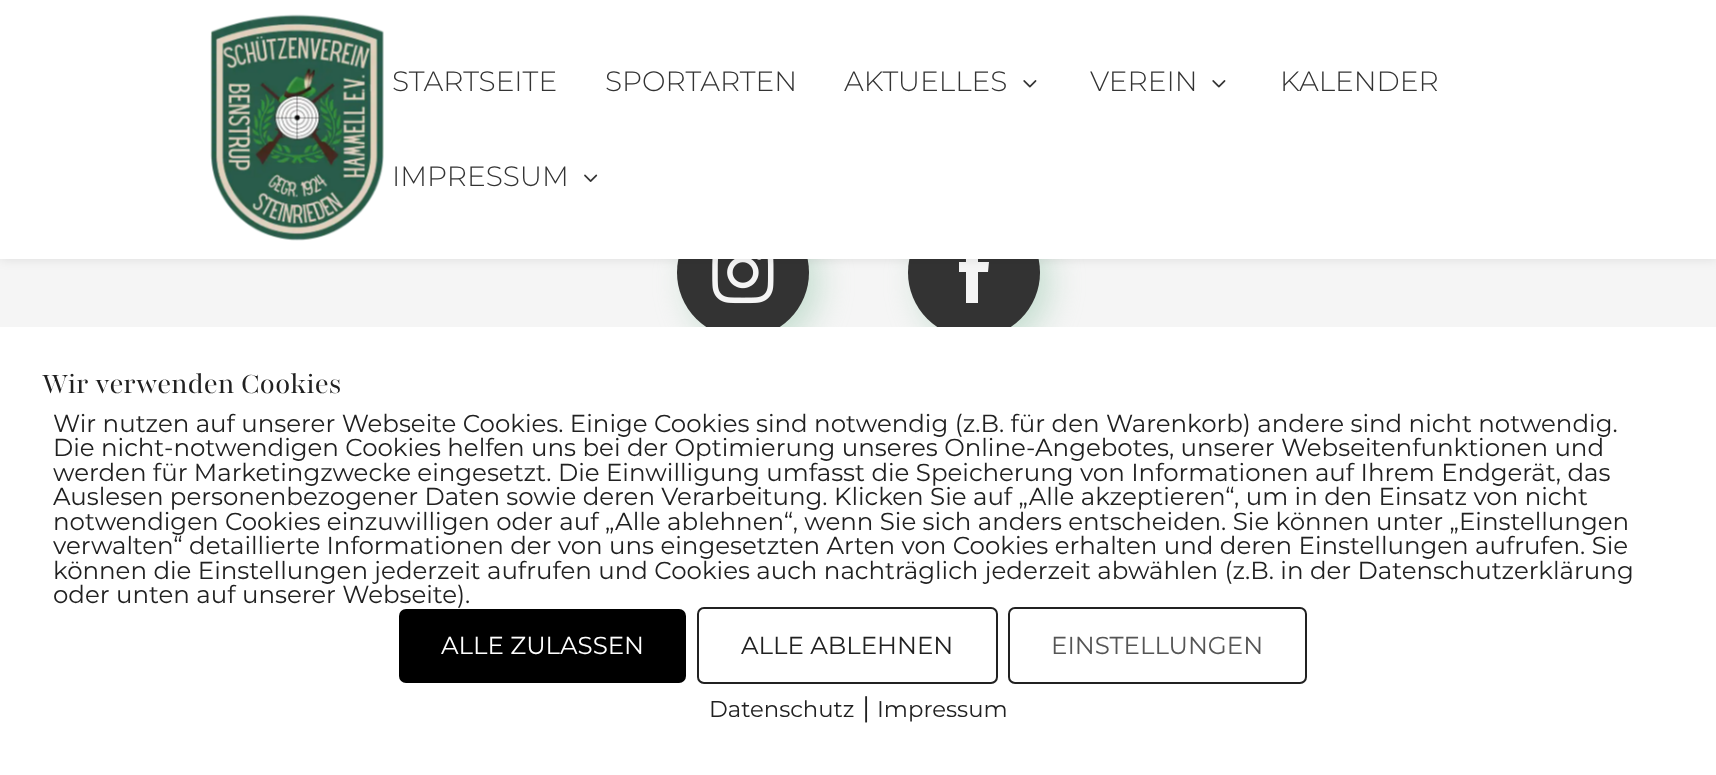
<!DOCTYPE html>
<meta charset="utf-8">
<style>body { margin: 0 } canvas { display: block }</style>
<canvas id="canvas" width="1716" height="775"></canvas>
<img id="img1" src="images/4.png" hidden>
<img id="img2" src="images/1.png" hidden>
<img id="img3" src="images/2.png" hidden>
<img id="img4" src="images/3.png" hidden>
<script>
window.onload = function () {
    const canvas = document.getElementById('canvas');
    const context = canvas.getContext('2d');
    context.miterLimit = 4;
    context.fontKerning = 'normal';

    context.fillStyle = 'rgb(245, 245, 245)';
    context.fillRect(0, 0, 1716, 775);
    context.fillStyle = 'rgba(167, 208, 185, 0.61)';
    context.filter = 'blur(16px)';
    context.beginPath();
    context.roundRect(688, 217, 131, 131, 65.5);
    context.fill();
    context.filter = 'none';
    context.fillStyle = 'rgb(51, 51, 51)';
    context.beginPath();
    context.roundRect(677, 207, 132, 131, 65.5);
    context.fill();
    context.drawImage(document.getElementById('img1'), 712, 259, 62, 45);
    context.fillStyle = 'rgba(167, 208, 185, 0.61)';
    context.filter = 'blur(16px)';
    context.beginPath();
    context.roundRect(919, 217, 131, 131, 65.5);
    context.fill();
    context.filter = 'none';
    context.fillStyle = 'rgb(51, 51, 51)';
    context.beginPath();
    context.roundRect(908, 207, 132, 131, 65.5);
    context.fill();
    context.fillStyle = 'rgb(245, 245, 245)';
    context.beginPath();
    context.moveTo(966, 303);
    context.lineTo(978, 303);
    context.lineTo(978, 272);
    context.lineTo(988, 272);
    context.lineTo(989, 262);
    context.lineTo(978, 262);
    context.bezierCurveTo(978, 251, 978, 252, 989, 252);
    context.lineTo(989, 242);
    context.bezierCurveTo(970, 242, 966, 241, 966, 262);
    context.lineTo(959, 262);
    context.lineTo(959, 272);
    context.lineTo(966, 272);
    context.closePath();
    context.fill();
    context.fillStyle = 'rgba(0, 0, 0, 0.1)';
    context.filter = 'blur(6px)';
    context.beginPath();
    context.rect(0, 0, 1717, 259);
    context.fill();
    context.filter = 'none';
    context.fillStyle = 'rgb(255, 255, 255)';
    context.fillRect(0, 0, 1716, 259);
    context.drawImage(document.getElementById('img2'), 210, 14, 174, 227);
    context.drawImage(document.getElementById('img3'), 1023, 80, 14, 8);
    context.drawImage(document.getElementById('img3'), 1212, 80, 14, 8);
    context.drawImage(document.getElementById('img4'), 584, 174, 14, 8);
    context.fillRect(0, 327, 1716, 448);
    context.fillStyle = 'rgb(0, 0, 0)';
    context.beginPath();
    context.roundRect(399, 609, 287, 74, 7);
    context.fill();
    context.beginPath();
    context.roundRect(698, 608, 299, 75, 6);
    context.strokeStyle = 'rgb(33, 33, 33)';
    context.lineWidth = 2;
    context.stroke();
    context.beginPath();
    context.roundRect(1009, 608, 297, 75, 6);
    context.stroke();
    context.font = '300 28px Montserrat';
    context.fillStyle = 'rgb(51, 51, 51)';
    context.fillText('STARTSEITE', 392, 91);
    context.fillText('SPORTARTEN', 605, 91);
    context.fillText('AKTUELLES', 844, 91);
    context.fillText('VEREIN', 1090, 91);
    context.fillText('KALENDER', 1280, 91);
    context.fillText('IMPRESSUM', 392, 186);
    context.font = '31.5px Playfair';
    context.fillStyle = 'rgb(33, 33, 33)';
    context.fillText('Wir verwenden Cookies', 42, 393);
    context.font = '24.5px Montserrat';
    context.fillText('Wir nutzen auf unserer Webseite Cookies. Einige Cookies sind notwendig (z.B. für den Warenkorb) andere sind nicht notwendig.', 53, 432);
    context.fillText('Die nicht-notwendigen Cookies helfen uns bei der Optimierung unseres Online-Angebotes, unserer Webseitenfunktionen und', 53, 456);
    context.fillText('werden für Marketingzwecke eingesetzt. Die Einwilligung umfasst die Speicherung von Informationen auf Ihrem Endgerät, das', 53, 481);
    context.fillText('Auslesen personenbezogener Daten sowie deren Verarbeitung. Klicken Sie auf „Alle akzeptieren“, um in den Einsatz von nicht', 53, 505);
    context.fillText('notwendigen Cookies einzuwilligen oder auf „Alle ablehnen“, wenn Sie sich anders entscheiden. Sie können unter „Einstellungen', 53, 530);
    context.fillText('verwalten“ detaillierte Informationen der von uns eingesetzten Arten von Cookies erhalten und deren Einstellungen aufrufen. Sie', 53, 554);
    context.fillText('können die Einstellungen jederzeit aufrufen und Cookies auch nachträglich jederzeit abwählen (z.B. in der Datenschutzerklärung', 53, 579);
    context.fillText('oder unten auf unserer Webseite).', 53, 603);
    context.fillStyle = 'rgb(255, 255, 255)';
    context.fillText('ALLE ZULASSEN', 441, 654);
    context.fillStyle = 'rgb(33, 33, 33)';
    context.fillText('ALLE ABLEHNEN', 741, 654);
    context.fillStyle = 'rgb(85, 85, 85)';
    context.fillText('EINSTELLUNGEN', 1051, 654);
    context.font = '22.75px Montserrat';
    context.fillStyle = 'rgb(33, 33, 33)';
    context.fillText('Datenschutz', 709, 717);
    context.font = '28px Montserrat';
    context.fillText('|', 862, 717);
    context.font = '22.75px Montserrat';
    context.fillText('Impressum', 877, 717);
};
</script>
